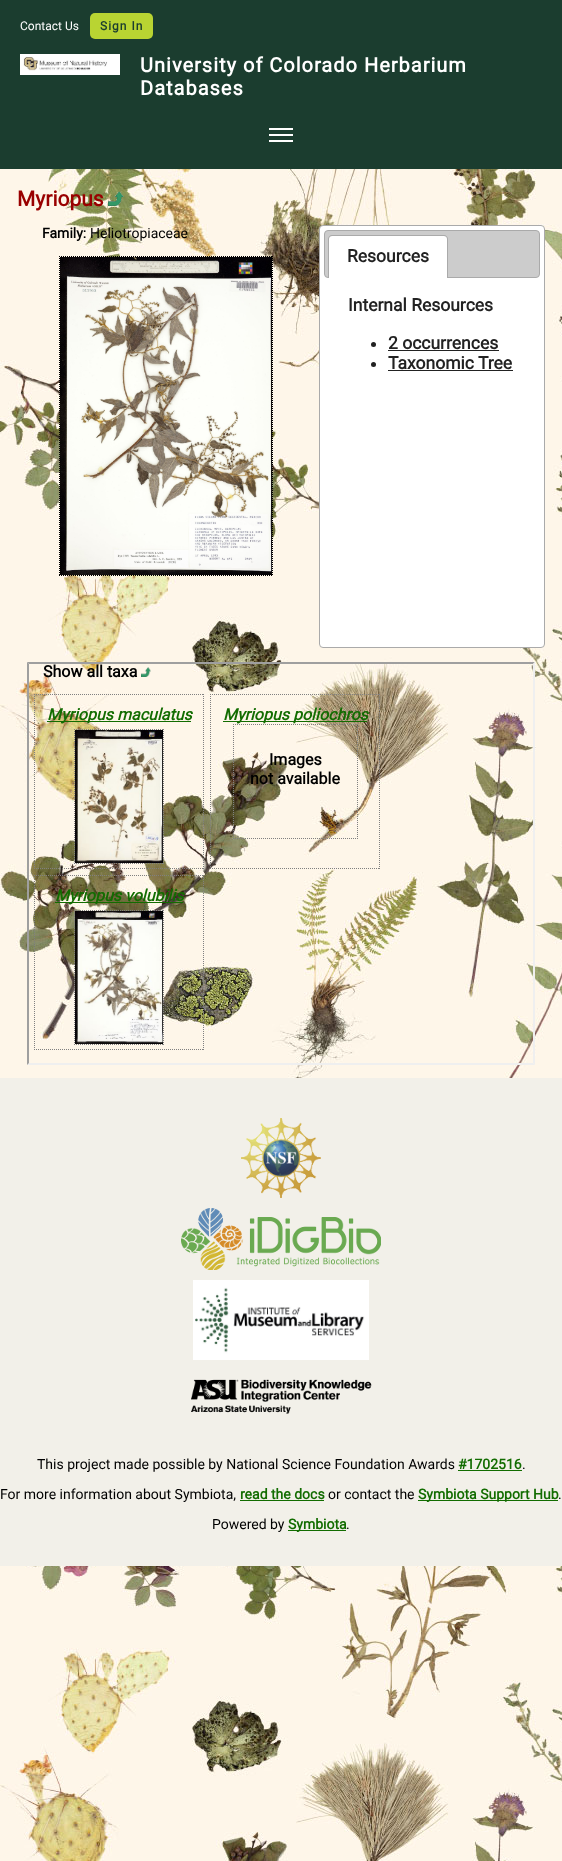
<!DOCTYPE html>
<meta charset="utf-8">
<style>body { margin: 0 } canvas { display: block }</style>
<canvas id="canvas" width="562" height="1861"></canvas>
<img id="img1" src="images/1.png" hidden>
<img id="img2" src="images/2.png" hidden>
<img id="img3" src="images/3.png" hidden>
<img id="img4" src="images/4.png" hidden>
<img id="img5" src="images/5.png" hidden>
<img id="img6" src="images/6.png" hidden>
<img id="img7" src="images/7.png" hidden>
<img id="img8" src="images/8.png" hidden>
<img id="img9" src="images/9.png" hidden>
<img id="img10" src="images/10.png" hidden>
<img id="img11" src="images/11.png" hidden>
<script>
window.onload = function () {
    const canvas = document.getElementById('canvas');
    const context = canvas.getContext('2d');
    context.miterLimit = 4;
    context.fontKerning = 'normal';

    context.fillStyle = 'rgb(255, 255, 255)';
    context.fillRect(0, 0, 562, 1861);
    context.drawImage(document.getElementById('img1'), 0, 169, 562, 1692);
    context.fillStyle = 'rgb(27, 61, 47)';
    context.fillRect(0, 0, 562, 169);
    context.fillStyle = 'rgb(185, 212, 50)';
    context.beginPath();
    context.roundRect(90, 13, 63, 26, 5);
    context.fill();
    context.drawImage(document.getElementById('img2'), 20, 54, 100, 21);
    context.fillStyle = 'rgb(255, 255, 255)';
    context.fillRect(269, 134, 24, 2);
    context.fillRect(269, 128, 24, 2);
    context.fillRect(269, 140, 24, 2);
    context.drawImage(document.getElementById('img3'), 108, 191, 16, 15);
    context.beginPath();
    context.moveTo(59, 256.5);
    context.lineTo(273, 256.5);
    context.strokeStyle = 'rgb(0, 0, 0)';
    context.setLineDash([1, 1]);
    context.stroke();
    context.beginPath();
    context.moveTo(59.5, 256);
    context.lineTo(59.5, 576);
    context.stroke();
    context.drawImage(document.getElementById('img4'), 60, 257, 212, 318);
    context.beginPath();
    context.moveTo(272.5, 256);
    context.lineTo(272.5, 576);
    context.stroke();
    context.beginPath();
    context.moveTo(59, 575.5);
    context.lineTo(273, 575.5);
    context.stroke();
    context.beginPath();
    context.roundRect(319.5, 225.5, 225, 422, 3.5);
    context.fill();
    context.strokeStyle = 'rgb(170, 170, 170)';
    context.setLineDash([]);
    context.stroke();
    context.fillStyle = 'rgb(204, 204, 204)';
    context.beginPath();
    context.roundRect(324.5, 230.5, 215, 47, 3.5);
    context.fill();
    context.stroke();
    context.fillStyle = 'rgb(255, 255, 255)';
    context.beginPath();
    context.roundRect(329, 236, 118, 42, [3, 3, 0, 0]);
    context.fill();
    context.fillStyle = 'rgb(170, 170, 170)';
    context.beginPath();
    context.moveTo(332, 235);
    context.lineTo(444, 235);
    context.bezierCurveTo(446, 235, 448, 237, 448, 239);
    context.lineTo(448, 278);
    context.lineTo(328, 278);
    context.lineTo(328, 239);
    context.bezierCurveTo(328, 237, 330, 235, 332, 235);
    context.closePath();
    context.moveTo(332, 236);
    context.lineTo(444, 236);
    context.bezierCurveTo(446, 236, 447, 237, 447, 239);
    context.lineTo(447, 278);
    context.lineTo(329, 278);
    context.lineTo(329, 239);
    context.bezierCurveTo(329, 237, 330, 236, 332, 236);
    context.closePath();
    context.fill('evenodd');
    context.fillStyle = 'rgb(34, 34, 34)';
    context.beginPath();
    context.arc(373.5, 344.5, 2.5, 0, 2 * Math.PI);
    context.fill();
    context.fillRect(388, 350, 111, 1);
    context.beginPath();
    context.arc(373.5, 364.5, 2.5, 0, 2 * Math.PI);
    context.fill();
    context.fillRect(388, 370, 125, 1);
    context.fillStyle = 'rgb(159, 159, 159)';
    context.beginPath();
    context.moveTo(27, 662);
    context.lineTo(535, 662);
    context.lineTo(533, 664);
    context.lineTo(29, 664);
    context.closePath();
    context.fill();
    context.fillStyle = 'rgb(239, 239, 239)';
    context.beginPath();
    context.moveTo(535, 662);
    context.lineTo(535, 1065);
    context.lineTo(533, 1063);
    context.lineTo(533, 664);
    context.closePath();
    context.fill();
    context.beginPath();
    context.moveTo(535, 1065);
    context.lineTo(27, 1065);
    context.lineTo(29, 1063);
    context.lineTo(533, 1063);
    context.closePath();
    context.fill();
    context.fillStyle = 'rgb(159, 159, 159)';
    context.beginPath();
    context.moveTo(27, 1065);
    context.lineTo(27, 662);
    context.lineTo(29, 664);
    context.lineTo(29, 1063);
    context.closePath();
    context.fill();
    context.drawImage(document.getElementById('img5'), 141, 667, 10, 10);
    context.beginPath();
    context.moveTo(34, 694.5);
    context.lineTo(204, 694.5);
    context.strokeStyle = 'rgb(128, 128, 128)';
    context.setLineDash([1, 1]);
    context.stroke();
    context.beginPath();
    context.moveTo(203.5, 694);
    context.lineTo(203.5, 869);
    context.stroke();
    context.beginPath();
    context.moveTo(34, 868.5);
    context.lineTo(204, 868.5);
    context.stroke();
    context.beginPath();
    context.moveTo(34.5, 694);
    context.lineTo(34.5, 869);
    context.stroke();
    context.fillStyle = 'rgb(18, 108, 0)';
    context.fillRect(47, 721, 144, 1);
    context.beginPath();
    context.moveTo(74, 729.5);
    context.lineTo(164, 729.5);
    context.stroke();
    context.beginPath();
    context.moveTo(74, 863.5);
    context.lineTo(164, 863.5);
    context.stroke();
    context.beginPath();
    context.moveTo(74.5, 729);
    context.lineTo(74.5, 864);
    context.stroke();
    context.drawImage(document.getElementById('img6'), 75, 730, 88, 133);
    context.beginPath();
    context.moveTo(163.5, 729);
    context.lineTo(163.5, 864);
    context.stroke();
    context.beginPath();
    context.moveTo(210, 694.5);
    context.lineTo(380, 694.5);
    context.stroke();
    context.beginPath();
    context.moveTo(379.5, 694);
    context.lineTo(379.5, 869);
    context.stroke();
    context.beginPath();
    context.moveTo(210, 868.5);
    context.lineTo(380, 868.5);
    context.stroke();
    context.beginPath();
    context.moveTo(210.5, 694);
    context.lineTo(210.5, 869);
    context.stroke();
    context.fillRect(223, 721, 144, 1);
    context.beginPath();
    context.moveTo(233, 724.5);
    context.lineTo(358, 724.5);
    context.stroke();
    context.beginPath();
    context.moveTo(357.5, 724);
    context.lineTo(357.5, 839);
    context.stroke();
    context.beginPath();
    context.moveTo(233, 838.5);
    context.lineTo(358, 838.5);
    context.stroke();
    context.beginPath();
    context.moveTo(233.5, 724);
    context.lineTo(233.5, 839);
    context.stroke();
    context.beginPath();
    context.moveTo(34, 875.5);
    context.lineTo(204, 875.5);
    context.stroke();
    context.beginPath();
    context.moveTo(203.5, 875);
    context.lineTo(203.5, 1050);
    context.stroke();
    context.beginPath();
    context.moveTo(34, 1049.5);
    context.lineTo(204, 1049.5);
    context.stroke();
    context.beginPath();
    context.moveTo(34.5, 875);
    context.lineTo(34.5, 1050);
    context.stroke();
    context.fillRect(55, 902, 128, 1);
    context.beginPath();
    context.moveTo(74, 910.5);
    context.lineTo(164, 910.5);
    context.stroke();
    context.beginPath();
    context.moveTo(74, 1044.5);
    context.lineTo(164, 1044.5);
    context.stroke();
    context.beginPath();
    context.moveTo(74.5, 910);
    context.lineTo(74.5, 1045);
    context.stroke();
    context.drawImage(document.getElementById('img7'), 75, 911, 88, 133);
    context.beginPath();
    context.moveTo(163.5, 910);
    context.lineTo(163.5, 1045);
    context.stroke();
    context.fillStyle = 'rgb(242, 240, 233)';
    context.fillRect(0, 1078, 562, 488);
    context.drawImage(document.getElementById('img8'), 241, 1118, 80, 80);
    context.drawImage(document.getElementById('img9'), 181, 1208, 200, 62);
    context.drawImage(document.getElementById('img10'), 193, 1280, 176, 80);
    context.drawImage(document.getElementById('img11'), 191, 1379, 181, 35);
    context.fillStyle = 'rgb(18, 108, 0)';
    context.fillRect(458, 1470, 64, 1);
    context.fillRect(240, 1500, 84, 1);
    context.fillRect(418, 1500, 140, 1);
    context.fillRect(288, 1530, 58, 1);
    context.font = '12px Roboto';
    context.fillStyle = 'rgb(255, 255, 255)';
    context.fillText('Contact Us', 20, 30);
    context.letterSpacing = '1px';
    context.font = 'bold 12px Roboto';
    context.fillStyle = 'rgb(27, 61, 47)';
    context.fillText('Sign In', 100, 30);
    context.font = 'bold 20px Roboto';
    context.fillStyle = 'rgb(255, 255, 255)';
    context.fillText('University of Colorado Herbarium', 140, 72);
    context.fillText('Databases', 140, 95);
    context.letterSpacing = '0px';
    context.font = 'bold 21px Roboto';
    context.fillStyle = 'rgb(153, 0, 0)';
    context.fillText('Myriopus', 17, 206);
    context.font = 'bold 14px Roboto';
    context.fillStyle = 'rgb(0, 0, 0)';
    context.fillText('Family:', 42, 238);
    context.font = '14px Roboto';
    context.fillText('Heliotropiaceae', 90, 238);
    context.font = 'bold 17.5px Roboto';
    context.fillStyle = 'rgb(34, 34, 34)';
    context.fillText('Resources', 347, 262);
    context.fillText('Internal Resources', 348, 311);
    context.fillText('2 occurrences', 388, 349);
    context.fillText('Taxonomic Tree', 388, 369);
    context.font = 'bold 16px Roboto';
    context.fillStyle = 'rgb(0, 0, 0)';
    context.fillText('Show all taxa', 43, 677);
    context.font = 'italic bold 16px Roboto';
    context.fillStyle = 'rgb(18, 108, 0)';
    context.fillText('Myriopus maculatus', 47, 720);
    context.fillText('Myriopus poliochros', 223, 720);
    context.font = 'bold 16px Roboto';
    context.fillStyle = 'rgb(0, 0, 0)';
    context.fillText('Images', 269, 765);
    context.fillText('not available', 250, 784);
    context.font = 'italic bold 16px Roboto';
    context.fillStyle = 'rgb(18, 108, 0)';
    context.fillText('Myriopus volubilis', 55, 901);
    context.font = '14px Roboto';
    context.fillStyle = 'rgb(0, 0, 0)';
    context.fillText('This project made possible by National Science Foundation Awards', 37, 1469);
    context.font = 'bold 14px Roboto';
    context.fillStyle = 'rgb(18, 108, 0)';
    context.fillText('#1702516', 458, 1469);
    context.font = '14px Roboto';
    context.fillStyle = 'rgb(0, 0, 0)';
    context.fillText('.', 522, 1469);
    context.fillText('For more information about Symbiota,', 0, 1499);
    context.font = 'bold 14px Roboto';
    context.fillStyle = 'rgb(18, 108, 0)';
    context.fillText('read the docs', 240, 1499);
    context.font = '14px Roboto';
    context.fillStyle = 'rgb(0, 0, 0)';
    context.fillText('or contact the', 328, 1499);
    context.font = 'bold 14px Roboto';
    context.fillStyle = 'rgb(18, 108, 0)';
    context.fillText('Symbiota Support Hub', 418, 1499);
    context.font = '14px Roboto';
    context.fillStyle = 'rgb(0, 0, 0)';
    context.fillText('.', 558, 1499);
    context.fillText('Powered by', 212, 1529);
    context.font = 'bold 14px Roboto';
    context.fillStyle = 'rgb(18, 108, 0)';
    context.fillText('Symbiota', 288, 1529);
    context.font = '14px Roboto';
    context.fillStyle = 'rgb(0, 0, 0)';
    context.fillText('.', 346, 1529);
};
</script>
